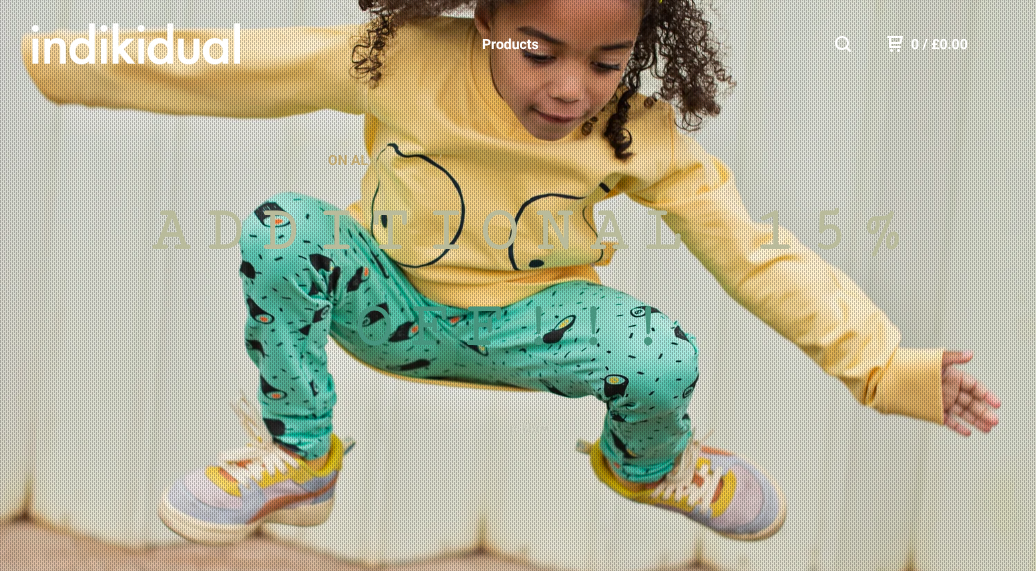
<!DOCTYPE html>
<meta charset="utf-8">
<style>body { margin: 0 } canvas { display: block }</style>
<canvas id="canvas" width="1036" height="571"></canvas>
<img id="img1" src="images/4.png" hidden>
<img id="img2" src="images/5.png" hidden>
<img id="img3" src="images/1.png" hidden>
<img id="img4" src="images/2.png" hidden>
<img id="img5" src="images/3.png" hidden>
<script>
window.onload = function () {
    const canvas = document.getElementById('canvas');
    const context = canvas.getContext('2d');
    context.miterLimit = 4;
    context.fontKerning = 'normal';

    context.fillStyle = 'rgb(255, 255, 255)';
    context.fillRect(0, 0, 1036, 571);
    context.drawImage(document.getElementById('img1'), 0, 0, 1036, 571);
    context.drawImage(document.getElementById('img2'), 0, 0, 1035, 571);
    context.drawImage(document.getElementById('img3'), 32, 23, 208, 42);
    context.drawImage(document.getElementById('img4'), 835, 36, 16, 16);
    context.drawImage(document.getElementById('img5'), 887, 36, 16, 16);
    context.font = 'bold 14px Roboto';
    context.fillText('Products', 482, 49);
    context.fillText('0 / £0.00', 911, 49);
    context.fillStyle = 'rgb(194, 169, 112)';
    context.fillText('ON AL', 328, 165);
    context.fillText('’', 439, 165);
    context.letterSpacing = '16px';
    context.font = 'bold 64px Cutive Mono';
    context.fillStyle = 'rgb(185, 187, 155)';
    context.fillText('ADDITIONAL 15%', 151, 249);
    context.fillStyle = 'rgb(71, 149, 127)';
    context.fillText('OFF!!!', 354, 345);
    context.letterSpacing = '0px';
    context.font = 'bold 14px Roboto';
    context.fillStyle = 'rgb(203, 204, 190)';
    context.fillText('p Now', 510, 433);
};
</script>
